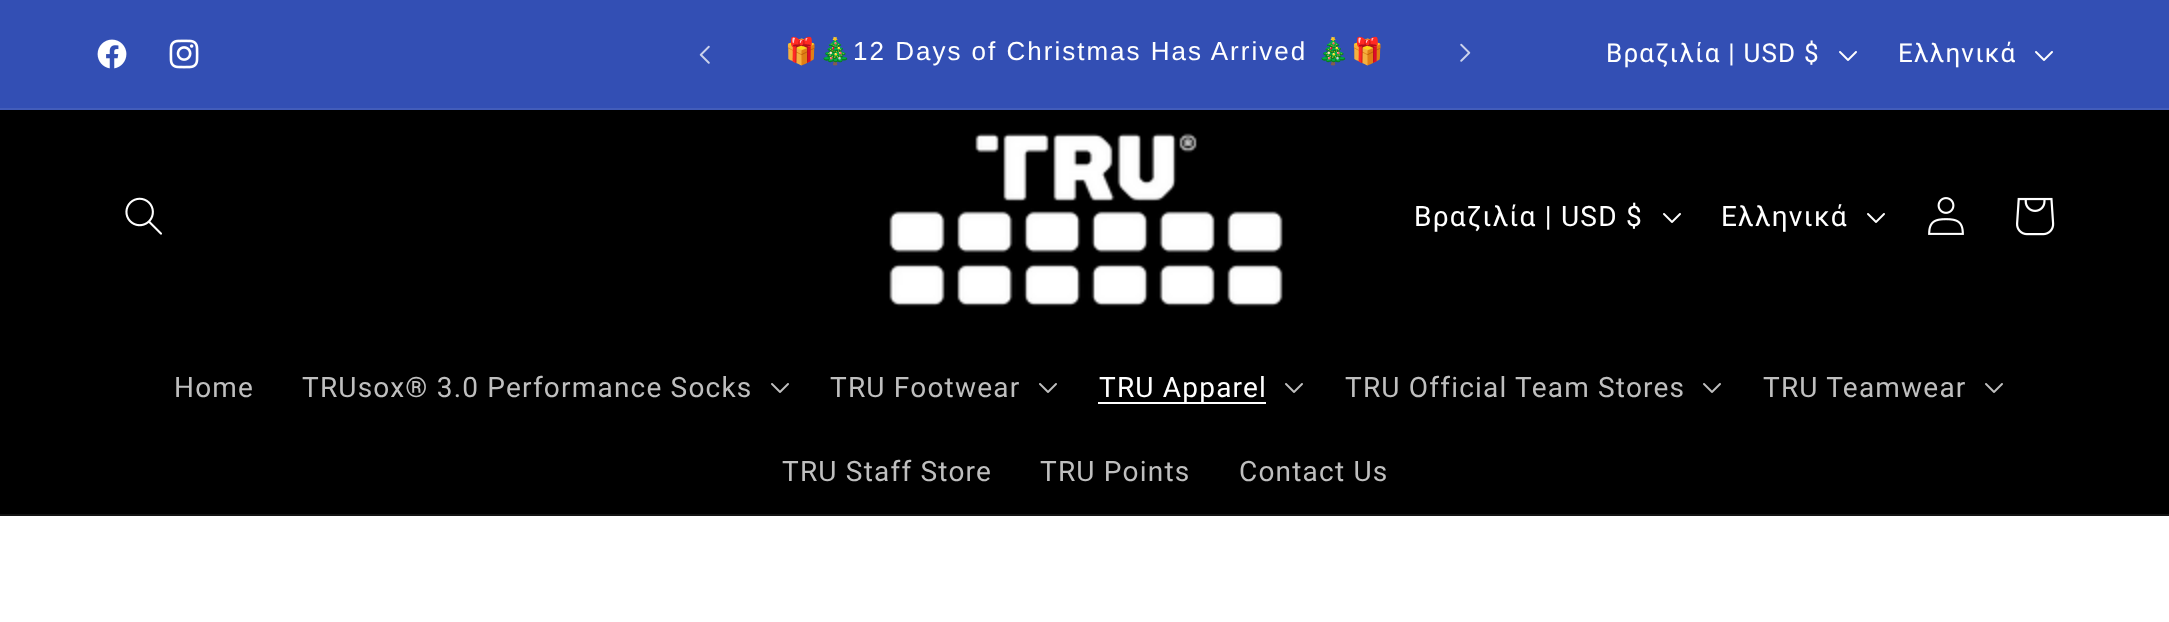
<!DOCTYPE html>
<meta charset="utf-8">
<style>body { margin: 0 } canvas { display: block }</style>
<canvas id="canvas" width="2169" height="622"></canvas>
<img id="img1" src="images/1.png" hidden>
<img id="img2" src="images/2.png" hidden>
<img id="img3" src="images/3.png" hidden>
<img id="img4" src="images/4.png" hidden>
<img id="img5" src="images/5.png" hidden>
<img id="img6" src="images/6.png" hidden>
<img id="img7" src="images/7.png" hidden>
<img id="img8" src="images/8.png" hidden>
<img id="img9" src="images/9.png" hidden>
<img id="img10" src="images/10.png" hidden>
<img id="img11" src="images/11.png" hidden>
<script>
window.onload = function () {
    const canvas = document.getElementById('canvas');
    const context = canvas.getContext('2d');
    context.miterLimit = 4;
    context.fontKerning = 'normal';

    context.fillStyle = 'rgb(255, 255, 255)';
    context.fillRect(0, 0, 2169, 622);
    context.fillStyle = 'rgb(51, 79, 180)';
    context.fillRect(0, 0, 2169, 108);
    context.fillStyle = 'rgb(67, 93, 186)';
    context.fillRect(0, 108, 2169, 2);
    context.drawImage(document.getElementById('img1'), 97, 39, 30, 30);
    context.drawImage(document.getElementById('img2'), 169, 39, 30, 30);
    context.drawImage(document.getElementById('img3'), 699, 45, 11, 19);
    context.drawImage(document.getElementById('img4'), 1460, 43, 11, 19);
    context.drawImage(document.getElementById('img5'), 1839, 51, 18, 10);
    context.drawImage(document.getElementById('img5'), 2035, 51, 18, 10);
    context.fillStyle = 'rgb(0, 0, 0)';
    context.fillRect(0, 110, 2169, 404);
    context.fillStyle = 'rgb(20, 20, 20)';
    context.fillRect(0, 514, 2169, 2);
    context.drawImage(document.getElementById('img6'), 125, 197, 37, 38);
    context.drawImage(document.getElementById('img7'), 889, 133, 394, 174);
    context.drawImage(document.getElementById('img8'), 1663, 213, 18, 10);
    context.drawImage(document.getElementById('img8'), 1867, 213, 18, 10);
    context.drawImage(document.getElementById('img9'), 1928, 197, 36, 38);
    context.drawImage(document.getElementById('img10'), 2016, 197, 39, 39);
    context.drawImage(document.getElementById('img11'), 771, 383, 18, 10);
    context.drawImage(document.getElementById('img11'), 1039, 383, 18, 10);
    context.fillStyle = 'rgb(255, 255, 255)';
    context.fillRect(1098, 402, 168, 2);
    context.drawImage(document.getElementById('img11'), 1285, 383, 18, 10);
    context.drawImage(document.getElementById('img11'), 1703, 383, 18, 10);
    context.drawImage(document.getElementById('img11'), 1985, 383, 18, 10);
    context.letterSpacing = '2px';
    context.font = '26px Noto Color Emoji';
    context.fillText('🎁🎄', 785, 60);
    context.font = '26px Liberation Sans';
    context.fillText('12 Days of Christmas Has Arrived', 853, 60);
    context.font = '26px Noto Color Emoji';
    context.fillText('🎄🎁', 1317, 60);
    context.letterSpacing = '1.2px';
    context.font = '26px Roboto';
    context.fillText('Βραζιλία | USD $', 1606, 62);
    context.fillText('Ελληνικά', 1898, 62);
    context.font = '28px Roboto';
    context.fillText('Βραζιλία | USD $', 1414, 226);
    context.fillText('Ελληνικά', 1721, 226);
    context.fillStyle = 'rgb(191, 191, 191)';
    context.fillText('Home', 174, 397);
    context.fillText('TRUsox® 3.0 Performance Socks', 302, 397);
    context.fillText('TRU Footwear', 830, 397);
    context.fillStyle = 'rgb(255, 255, 255)';
    context.fillText('TRU Apparel', 1099, 397);
    context.fillStyle = 'rgb(191, 191, 191)';
    context.fillText('TRU Official Team Stores', 1345, 397);
    context.fillText('TRU Teamwear', 1763, 397);
    context.fillText('TRU Staff Store', 782, 481);
    context.fillText('TRU Points', 1040, 481);
    context.fillText('Contact Us', 1239, 481);
};
</script>
